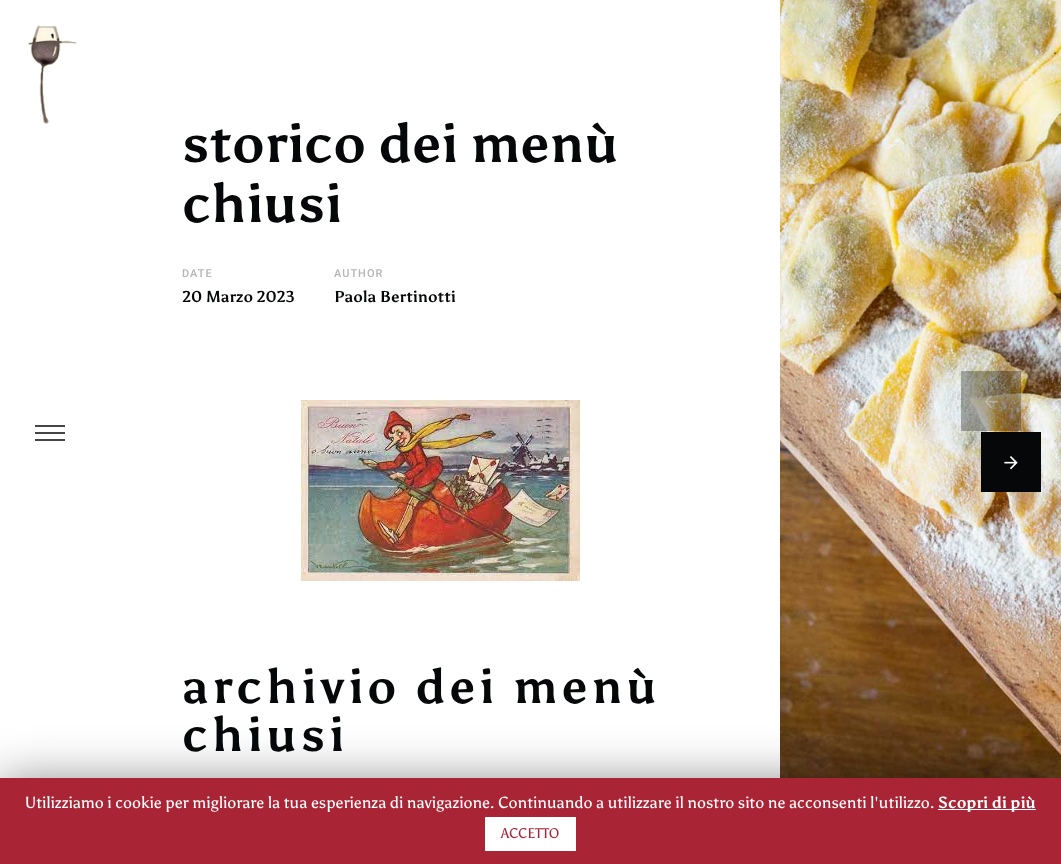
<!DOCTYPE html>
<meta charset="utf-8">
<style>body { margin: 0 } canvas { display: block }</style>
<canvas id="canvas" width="1061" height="864"></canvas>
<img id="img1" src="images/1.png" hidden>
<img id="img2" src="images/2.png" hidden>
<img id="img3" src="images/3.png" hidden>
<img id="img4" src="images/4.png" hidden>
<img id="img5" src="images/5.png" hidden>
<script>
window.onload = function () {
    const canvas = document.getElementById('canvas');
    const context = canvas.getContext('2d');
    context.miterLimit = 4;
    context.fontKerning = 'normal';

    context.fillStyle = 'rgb(255, 255, 255)';
    context.fillRect(0, 0, 1061, 864);
    context.drawImage(document.getElementById('img1'), 28, 25, 49, 99);
    context.fillStyle = 'rgb(69, 69, 70)';
    context.fillRect(35, 425, 30, 2);
    context.fillRect(35, 432, 30, 2);
    context.fillRect(35, 439, 30, 2);
    context.drawImage(document.getElementById('img2'), 301, 400, 279, 181);
    context.drawImage(document.getElementById('img3'), 780, 0, 281, 778);
    context.fillStyle = 'rgba(6, 7, 8, 0.3)';
    context.fillRect(961, 371, 60, 60);
    context.drawImage(document.getElementById('img4'), 984, 395, 14, 13);
    context.fillStyle = 'rgb(6, 7, 8)';
    context.fillRect(981, 432, 60, 60);
    context.drawImage(document.getElementById('img5'), 1004, 456, 14, 14);
    context.fillStyle = 'rgba(0, 0, 0, 0.5)';
    context.filter = 'blur(25px)';
    context.beginPath();
    context.rect(0, 783, 1061, 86);
    context.fill();
    context.filter = 'none';
    context.fillStyle = 'rgb(169, 37, 53)';
    context.fillRect(0, 778, 1061, 86);
    context.fillStyle = 'rgb(255, 255, 255)';
    context.fillRect(938, 809, 98, 1);
    context.fillRect(485, 817, 91, 34);
    context.font = 'bold 54px Asul';
    context.fillStyle = 'rgb(6, 7, 8)';
    context.fillText('storico dei menù', 182, 162);
    context.fillText('chiusi', 182, 222);
    context.letterSpacing = '1px';
    context.font = '500 11px Roboto';
    context.fillStyle = 'rgb(181, 181, 182)';
    context.fillText('DATE', 182, 277);
    context.letterSpacing = '0px';
    context.font = 'bold 15.75px Asul';
    context.fillStyle = 'rgb(6, 7, 8)';
    context.fillText('20 Marzo 2023', 182, 302);
    context.letterSpacing = '1px';
    context.font = '500 11px Roboto';
    context.fillStyle = 'rgb(181, 181, 182)';
    context.fillText('AUTHOR', 334, 277);
    context.letterSpacing = '0px';
    context.font = 'bold 15.75px Asul';
    context.fillStyle = 'rgb(6, 7, 8)';
    context.fillText('Paola Bertinotti', 334, 302);
    context.letterSpacing = '4px';
    context.font = 'bold 48px Asul';
    context.fillText('archivio dei menù', 182, 703);
    context.fillText('chiusi', 182, 751);
    context.letterSpacing = '0px';
    context.font = '16px Asul';
    context.fillStyle = 'rgb(255, 255, 255)';
    context.fillText('Utilizziamo i cookie per migliorare la tua esperienza di navigazione. Continuando a utilizzare il nostro sito ne acconsenti l\'utilizzo.', 25, 808);
    context.font = 'bold 16px Asul';
    context.fillText('Scopri di più', 938, 808);
    context.font = '14px Asul';
    context.fillStyle = 'rgb(169, 37, 53)';
    context.fillText('ACCETTO', 501, 838);
};
</script>
